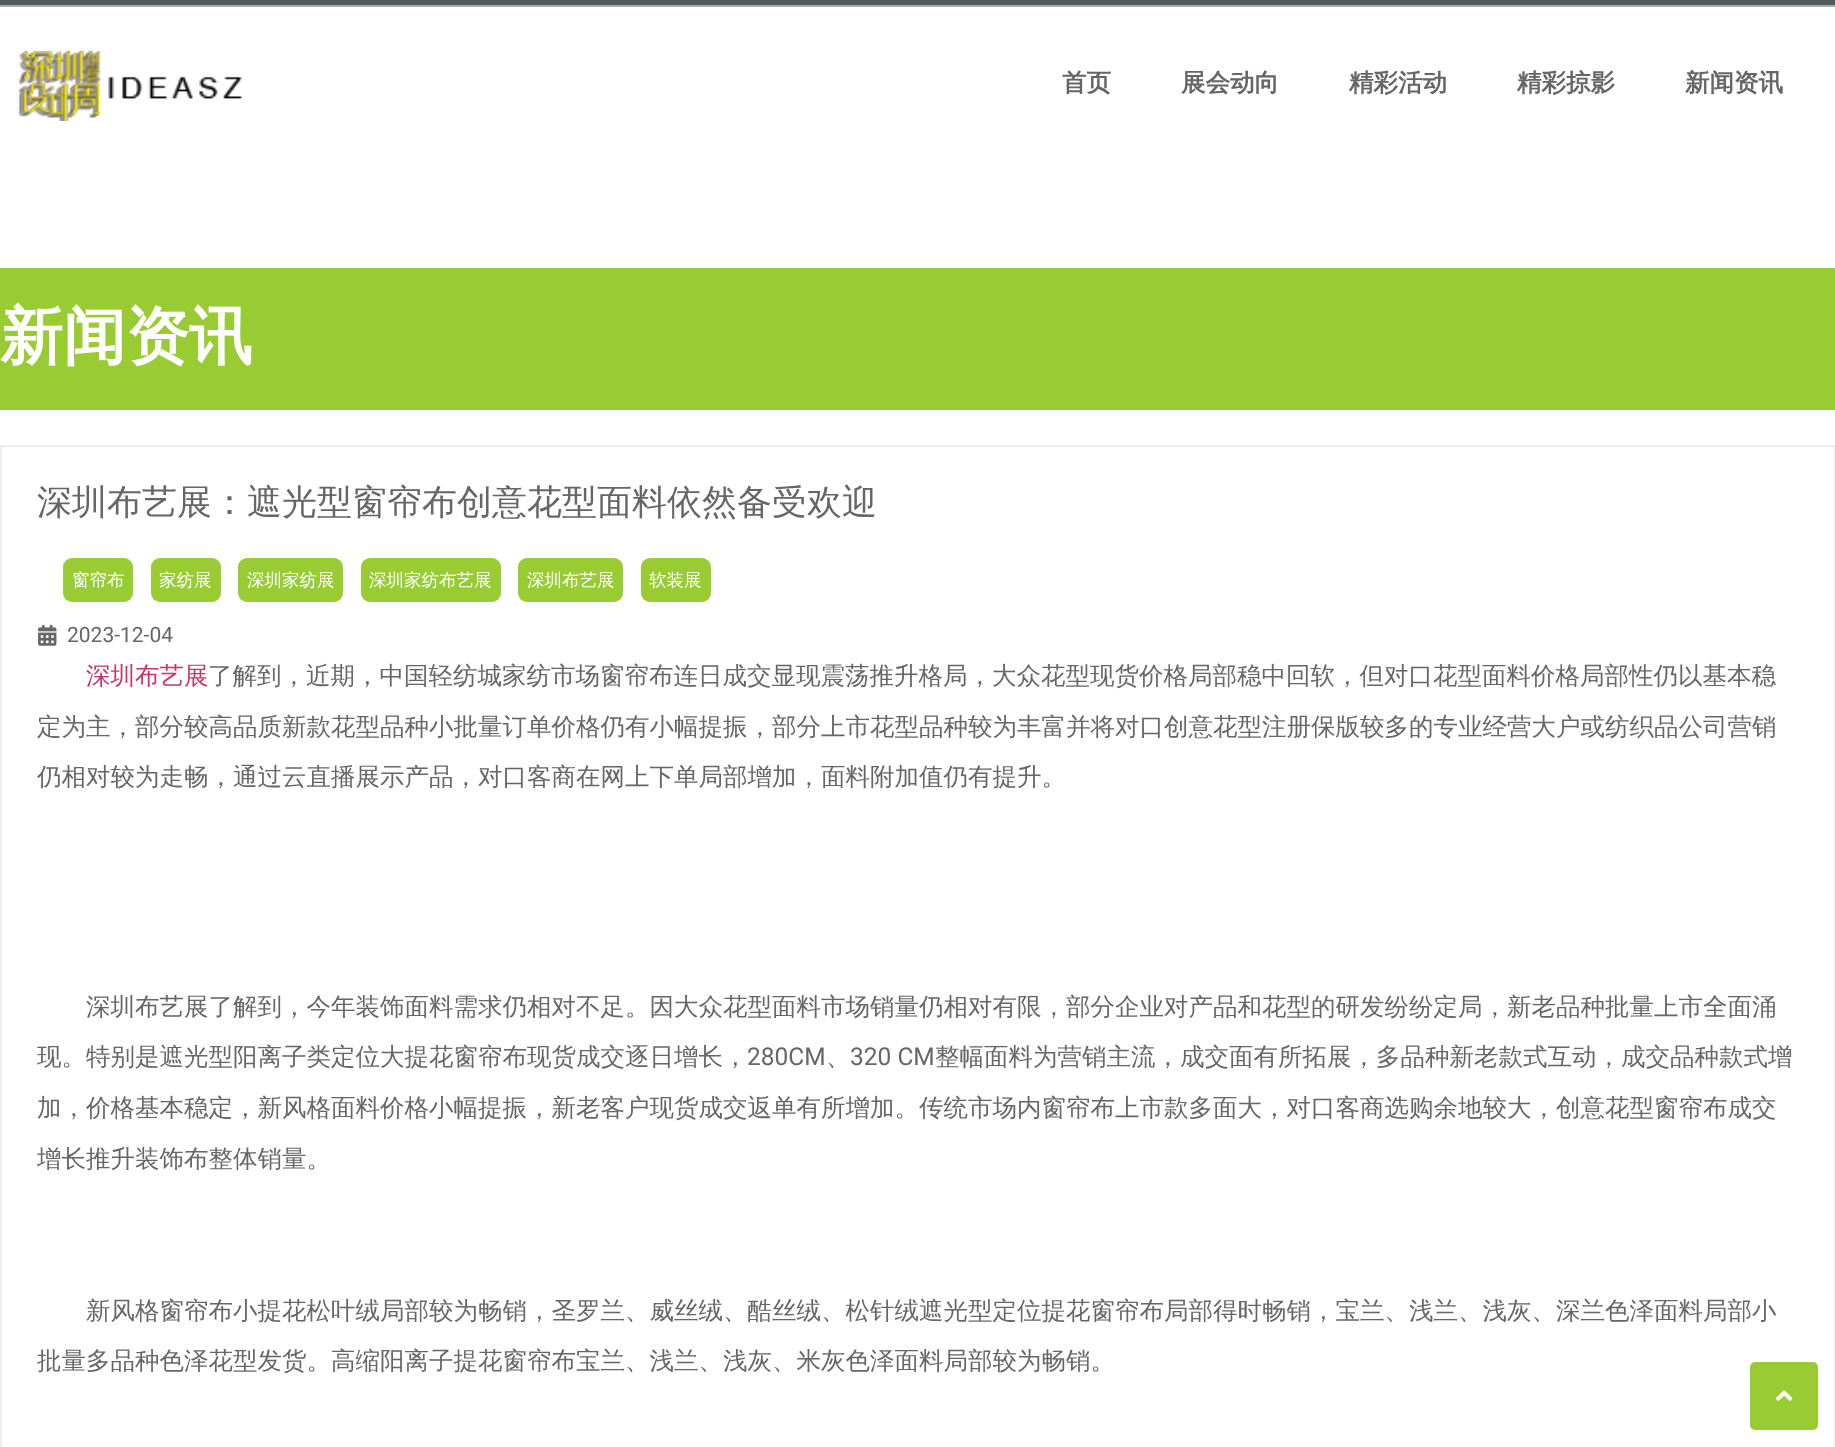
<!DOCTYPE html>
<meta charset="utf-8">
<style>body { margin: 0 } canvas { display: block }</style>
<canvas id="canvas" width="1835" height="1447"></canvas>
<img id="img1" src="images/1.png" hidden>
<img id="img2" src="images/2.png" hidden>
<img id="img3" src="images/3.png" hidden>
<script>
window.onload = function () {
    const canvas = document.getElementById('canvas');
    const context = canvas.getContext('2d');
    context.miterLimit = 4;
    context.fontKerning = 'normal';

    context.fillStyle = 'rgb(255, 255, 255)';
    context.fillRect(0, 0, 1835, 1447);
    context.fillStyle = 'rgb(82, 90, 92)';
    context.fillRect(0, 0, 1835, 5);
    context.fillStyle = 'rgb(165, 172, 175)';
    context.fillRect(0, 5, 1835, 2);
    context.drawImage(document.getElementById('img1'), 18, 51, 224, 70);
    context.fillStyle = 'rgb(153, 204, 51)';
    context.fillRect(0, 268, 1835, 142);
    context.strokeStyle = 'rgb(238, 238, 238)';
    context.lineWidth = 2;
    context.strokeRect(1, 446, 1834, 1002);
    context.beginPath();
    context.roundRect(63, 558, 70, 44, 9);
    context.fill();
    context.beginPath();
    context.roundRect(151, 558, 70, 44, 9);
    context.fill();
    context.beginPath();
    context.roundRect(238, 558, 105, 44, 9);
    context.fill();
    context.beginPath();
    context.roundRect(361, 558, 140, 44, 9);
    context.fill();
    context.beginPath();
    context.roundRect(518, 558, 105, 44, 9);
    context.fill();
    context.beginPath();
    context.roundRect(641, 558, 70, 44, 9);
    context.fill();
    context.drawImage(document.getElementById('img2'), 38, 625, 19, 21);
    context.beginPath();
    context.roundRect(1750, 1362, 68, 68, 5);
    context.fill();
    context.drawImage(document.getElementById('img3'), 1775, 1390, 18, 11);
    context.font = 'bold 24.5px WenQuanYi Zen Hei';
    context.fillStyle = 'rgb(102, 102, 102)';
    context.fillText('首页', 1062, 91);
    context.fillText('展会动向', 1181, 91);
    context.fillText('精彩活动', 1349, 91);
    context.fillText('精彩掠影', 1517, 91);
    context.fillText('新闻资讯', 1685, 91);
    context.font = 'bold 63px WenQuanYi Zen Hei';
    context.fillStyle = 'rgb(255, 255, 255)';
    context.fillText('新闻资讯', 0, 358);
    context.font = '500 35px WenQuanYi Zen Hei';
    context.fillStyle = 'rgb(102, 102, 102)';
    context.fillText('深圳布艺展：遮光型窗帘布创意花型面料依然备受欢迎', 37, 514);
    context.font = '500 17.5px WenQuanYi Zen Hei';
    context.fillStyle = 'rgb(255, 255, 255)';
    context.fillText('窗帘布', 72, 586);
    context.fillText('家纺展', 159, 586);
    context.fillText('深圳家纺展', 247, 586);
    context.fillText('深圳家纺布艺展', 369, 586);
    context.fillText('深圳布艺展', 527, 586);
    context.fillText('软装展', 649, 586);
    context.font = '21px Roboto';
    context.fillStyle = 'rgb(102, 102, 102)';
    context.fillText('2023-12-04', 67, 642);
    context.font = '500 24.5px WenQuanYi Zen Hei';
    context.fillStyle = 'rgb(204, 51, 102)';
    context.fillText('深圳布艺展', 86, 684);
    context.fillStyle = 'rgb(102, 102, 102)';
    context.fillText('了解到，近期，中国轻纺城家纺市场窗帘布连日成交显现震荡推升格局，大众花型现货价格局部稳中回软，但对口花型面料价格局部性仍以基本稳', 208, 684);
    context.fillText('定为主，部分较高品质新款花型品种小批量订单价格仍有小幅提振，部分上市花型品种较为丰富并将对口创意花型注册保版较多的专业经营大户或纺织品公司营销', 37, 735);
    context.fillText('仍相对较为走畅，通过云直播展示产品，对口客商在网上下单局部增加，面料附加值仍有提升。', 37, 785);
    context.fillText('深圳布艺展了解到，今年装饰面料需求仍相对不足。因大众花型面料市场销量仍相对有限，部分企业对产品和花型的研发纷纷定局，新老品种批量上市全面涌', 86, 1015);
    context.fillText('现。特别是遮光型阳离子类定位大提花窗帘布现货成交逐日增长，', 37, 1065);
    context.font = '24.5px Roboto';
    context.fillText('280CM', 747, 1065);
    context.font = '500 24.5px WenQuanYi Zen Hei';
    context.fillText('、', 826, 1065);
    context.font = '24.5px Roboto';
    context.fillText('320 CM', 850, 1065);
    context.font = '500 24.5px WenQuanYi Zen Hei';
    context.fillText('整幅面料为营销主流，成交面有所拓展，多品种新老款式互动，成交品种款式增', 935, 1065);
    context.fillText('加，价格基本稳定，新风格面料价格小幅提振，新老客户现货成交返单有所增加。传统市场内窗帘布上市款多面大，对口客商选购余地较大，创意花型窗帘布成交', 37, 1116);
    context.fillText('增长推升装饰布整体销量。', 37, 1167);
    context.fillText('新风格窗帘布小提花松叶绒局部较为畅销，圣罗兰、威丝绒、酷丝绒、松针绒遮光型定位提花窗帘布局部得时畅销，宝兰、浅兰、浅灰、深兰色泽面料局部小', 86, 1319);
    context.fillText('批量多品种色泽花型发货。高缩阳离子提花窗帘布宝兰、浅兰、浅灰、米灰色泽面料局部较为畅销。', 37, 1369);
};
</script>
